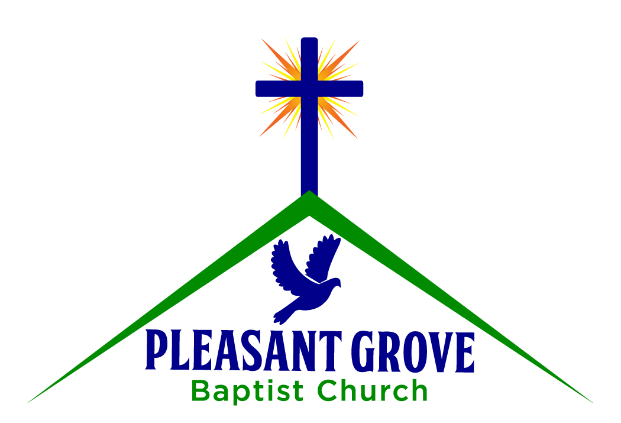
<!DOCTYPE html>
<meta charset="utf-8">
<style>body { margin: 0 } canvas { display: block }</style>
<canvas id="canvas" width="621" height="423"></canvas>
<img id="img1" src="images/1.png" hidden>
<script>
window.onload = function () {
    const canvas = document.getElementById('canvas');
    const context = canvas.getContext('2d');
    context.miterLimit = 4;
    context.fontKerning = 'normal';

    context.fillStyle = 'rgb(255, 255, 255)';
    context.fillRect(0, 0, 621, 423);
    context.drawImage(document.getElementById('img1'), 27, 37, 566, 369);
};
</script>
